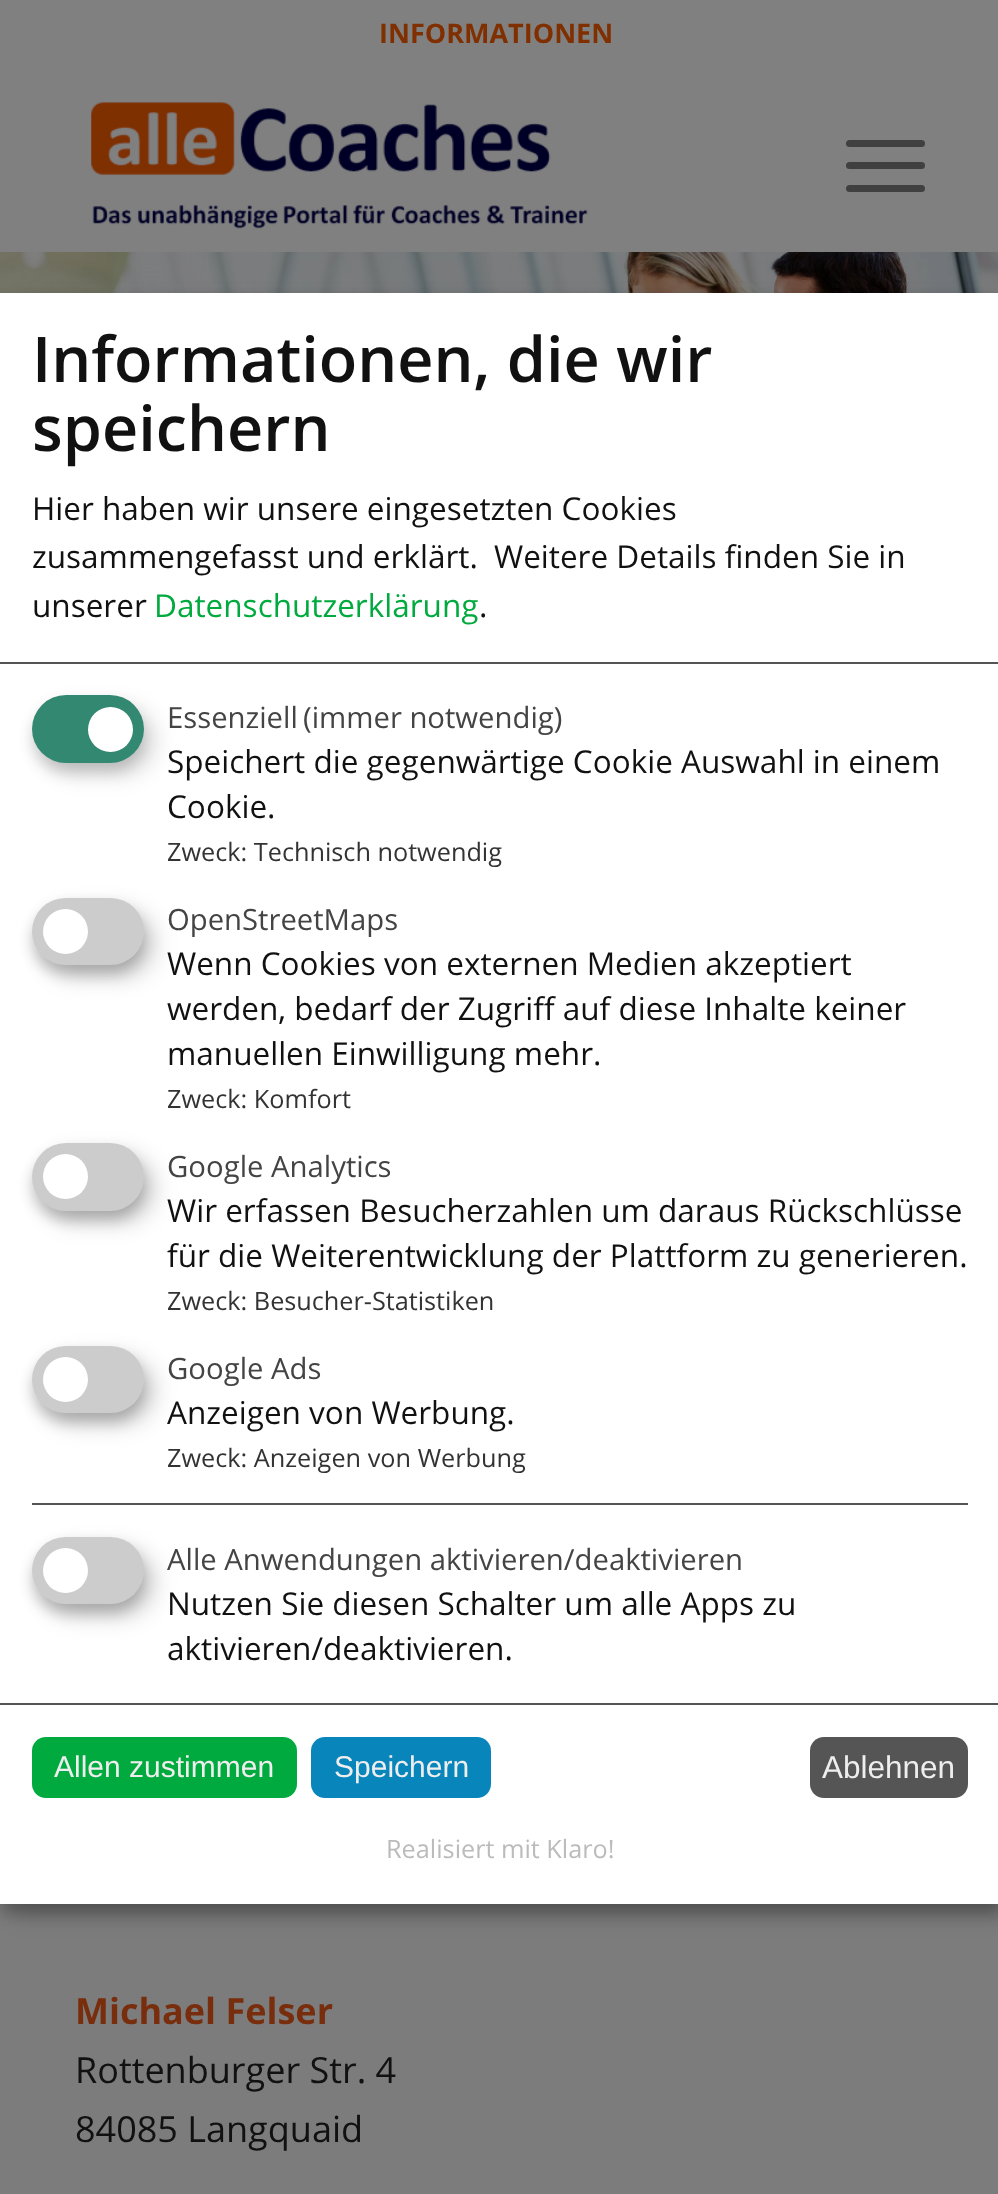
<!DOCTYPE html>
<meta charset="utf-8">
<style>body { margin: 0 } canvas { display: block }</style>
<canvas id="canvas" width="998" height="2194"></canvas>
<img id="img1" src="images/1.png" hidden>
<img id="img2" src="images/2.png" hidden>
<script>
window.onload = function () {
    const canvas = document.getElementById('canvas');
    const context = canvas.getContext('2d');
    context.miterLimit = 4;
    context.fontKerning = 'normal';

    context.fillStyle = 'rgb(124, 124, 124)';
    context.fillRect(0, 0, 998, 2194);
    context.fillStyle = 'rgb(128, 128, 128)';
    context.fillRect(0, 0, 998, 252);
    context.drawImage(document.getElementById('img1'), 91, 102, 497, 127);
    context.fillStyle = 'rgb(64, 64, 64)';
    context.beginPath();
    context.roundRect(846, 162, 79, 7, 3.5);
    context.fill();
    context.beginPath();
    context.roundRect(846, 140, 79, 7, 3.5);
    context.fill();
    context.beginPath();
    context.roundRect(846, 185, 79, 7, 3.5);
    context.fill();
    context.drawImage(document.getElementById('img2'), 0, 252, 998, 41);
    context.fillStyle = 'rgba(0, 0, 0, 0.19)';
    context.filter = 'blur(11px)';
    context.beginPath();
    context.rect(11, 304, 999, 1611);
    context.fill();
    context.filter = 'none';
    context.fillStyle = 'rgba(0, 0, 0, 0.2)';
    context.filter = 'blur(7px)';
    context.beginPath();
    context.rect(0, 302, 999, 1611);
    context.fill();
    context.filter = 'none';
    context.fillStyle = 'rgb(255, 255, 255)';
    context.fillRect(0, 293, 998, 1611);
    context.fillStyle = 'rgb(85, 85, 85)';
    context.fillRect(0, 662, 998, 2);
    context.fillStyle = 'rgba(0, 0, 0, 0.15)';
    context.filter = 'blur(11px)';
    context.beginPath();
    context.roundRect(43, 707, 112, 67, 33.5);
    context.fill();
    context.filter = 'none';
    context.fillStyle = 'rgba(51, 51, 51, 0.2)';
    context.filter = 'blur(7px)';
    context.beginPath();
    context.roundRect(32, 704, 112, 68, 34);
    context.fill();
    context.filter = 'none';
    context.fillStyle = 'rgb(51, 136, 113)';
    context.beginPath();
    context.roundRect(32, 695, 112, 68, 34);
    context.fill();
    context.fillStyle = 'rgb(255, 255, 255)';
    context.beginPath();
    context.arc(110.5, 729.5, 22.5, 0, 2 * Math.PI);
    context.fill();
    context.fillStyle = 'rgba(0, 0, 0, 0.19)';
    context.filter = 'blur(11px)';
    context.beginPath();
    context.roundRect(43, 909, 112, 68, 34);
    context.fill();
    context.filter = 'none';
    context.fillStyle = 'rgba(0, 0, 0, 0.2)';
    context.filter = 'blur(7px)';
    context.beginPath();
    context.roundRect(32, 907, 112, 67, 33.5);
    context.fill();
    context.filter = 'none';
    context.fillStyle = 'rgb(204, 204, 204)';
    context.beginPath();
    context.roundRect(32, 898, 112, 67, 33.5);
    context.fill();
    context.fillStyle = 'rgb(255, 255, 255)';
    context.beginPath();
    context.arc(65.5, 931.5, 22.5, 0, 2 * Math.PI);
    context.fill();
    context.fillStyle = 'rgba(0, 0, 0, 0.19)';
    context.filter = 'blur(11px)';
    context.beginPath();
    context.roundRect(43, 1154, 112, 68, 34);
    context.fill();
    context.filter = 'none';
    context.fillStyle = 'rgba(0, 0, 0, 0.2)';
    context.filter = 'blur(7px)';
    context.beginPath();
    context.roundRect(32, 1152, 112, 68, 34);
    context.fill();
    context.filter = 'none';
    context.fillStyle = 'rgb(204, 204, 204)';
    context.beginPath();
    context.roundRect(32, 1143, 112, 68, 34);
    context.fill();
    context.fillStyle = 'rgb(255, 255, 255)';
    context.beginPath();
    context.arc(65.5, 1176.5, 22.5, 0, 2 * Math.PI);
    context.fill();
    context.fillStyle = 'rgba(0, 0, 0, 0.19)';
    context.filter = 'blur(11px)';
    context.beginPath();
    context.roundRect(43, 1357, 112, 67, 33.5);
    context.fill();
    context.filter = 'none';
    context.fillStyle = 'rgba(0, 0, 0, 0.2)';
    context.filter = 'blur(7px)';
    context.beginPath();
    context.roundRect(32, 1355, 112, 67, 33.5);
    context.fill();
    context.filter = 'none';
    context.fillStyle = 'rgb(204, 204, 204)';
    context.beginPath();
    context.roundRect(32, 1346, 112, 67, 33.5);
    context.fill();
    context.fillStyle = 'rgb(255, 255, 255)';
    context.beginPath();
    context.arc(65.5, 1379.5, 22.5, 0, 2 * Math.PI);
    context.fill();
    context.fillStyle = 'rgb(85, 85, 85)';
    context.fillRect(32, 1503, 936, 2);
    context.fillStyle = 'rgba(0, 0, 0, 0.19)';
    context.filter = 'blur(11px)';
    context.beginPath();
    context.roundRect(43, 1548, 112, 68, 34);
    context.fill();
    context.filter = 'none';
    context.fillStyle = 'rgba(0, 0, 0, 0.2)';
    context.filter = 'blur(7px)';
    context.beginPath();
    context.roundRect(32, 1546, 112, 67, 33.5);
    context.fill();
    context.filter = 'none';
    context.fillStyle = 'rgb(204, 204, 204)';
    context.beginPath();
    context.roundRect(32, 1537, 112, 67, 33.5);
    context.fill();
    context.fillStyle = 'rgb(255, 255, 255)';
    context.beginPath();
    context.arc(65.5, 1570.5, 22.5, 0, 2 * Math.PI);
    context.fill();
    context.fillStyle = 'rgb(85, 85, 85)';
    context.fillRect(0, 1703, 998, 2);
    context.fillStyle = 'rgb(0, 170, 62)';
    context.beginPath();
    context.roundRect(32, 1737, 265, 61, 14);
    context.fill();
    context.fillStyle = 'rgb(8, 133, 186)';
    context.beginPath();
    context.roundRect(311, 1737, 180, 61, 14);
    context.fill();
    context.fillStyle = 'rgb(85, 85, 85)';
    context.beginPath();
    context.roundRect(810, 1737, 158, 61, 14);
    context.fill();
    context.font = 'bold 27px Open Sans';
    context.fillStyle = 'rgb(128, 48, 0)';
    context.fillText('INFORMATIONEN', 379, 43);
    context.font = 'bold 36px Open Sans';
    context.fillStyle = 'rgb(120, 45, 13)';
    context.fillText('Michael Felser', 75, 2024);
    context.font = '36px Open Sans';
    context.fillStyle = 'rgb(17, 17, 17)';
    context.fillText('Rottenburger Str. 4', 75, 2083);
    context.fillText('84085 Langquaid', 75, 2142);
    context.font = '600 63px Open Sans';
    context.fillText('Informationen, die wir', 32, 382);
    context.fillText('speichern', 32, 451);
    context.font = '31.5px Open Sans';
    context.fillText('Hier haben wir unsere eingesetzten Cookies', 32, 520);
    context.fillText('zusammengefasst und erklärt.', 32, 568);
    context.fillText('Weitere Details finden Sie in', 494, 568);
    context.fillText('unserer', 32, 617);
    context.fillStyle = 'rgb(0, 170, 62)';
    context.fillText('Datenschutzerklärung', 154, 617);
    context.fillStyle = 'rgb(17, 17, 17)';
    context.fillText('.', 479, 617);
    context.font = '29.25px Open Sans';
    context.fillStyle = 'rgb(68, 68, 68)';
    context.fillText('Essenziell', 167, 728);
    context.fillText('(immer notwendig)', 303, 728);
    context.font = '31.5px Open Sans';
    context.fillStyle = 'rgb(17, 17, 17)';
    context.fillText('Speichert die gegenwärtige Cookie Auswahl in einem', 167, 773);
    context.fillText('Cookie.', 167, 818);
    context.font = '25.25px Open Sans';
    context.fillStyle = 'rgb(51, 51, 51)';
    context.fillText('Zweck: Technisch notwendig', 167, 861);
    context.font = '29.25px Open Sans';
    context.fillStyle = 'rgb(68, 68, 68)';
    context.fillText('OpenStreetMaps', 167, 930);
    context.font = '31.5px Open Sans';
    context.fillStyle = 'rgb(17, 17, 17)';
    context.fillText('Wenn Cookies von externen Medien akzeptiert', 167, 975);
    context.fillText('werden, bedarf der Zugriff auf diese Inhalte keiner', 167, 1020);
    context.fillText('manuellen Einwilligung mehr.', 167, 1065);
    context.font = '25.25px Open Sans';
    context.fillStyle = 'rgb(51, 51, 51)';
    context.fillText('Zweck: Komfort', 167, 1108);
    context.font = '29.25px Open Sans';
    context.fillStyle = 'rgb(68, 68, 68)';
    context.fillText('Google Analytics', 167, 1177);
    context.font = '31.5px Open Sans';
    context.fillStyle = 'rgb(17, 17, 17)';
    context.fillText('Wir erfassen Besucherzahlen um daraus Rückschlüsse', 167, 1222);
    context.fillText('für die Weiterentwicklung der Plattform zu generieren.', 167, 1267);
    context.font = '25.25px Open Sans';
    context.fillStyle = 'rgb(51, 51, 51)';
    context.fillText('Zweck: Besucher-Statistiken', 167, 1310);
    context.font = '29.25px Open Sans';
    context.fillStyle = 'rgb(68, 68, 68)';
    context.fillText('Google Ads', 167, 1379);
    context.font = '31.5px Open Sans';
    context.fillStyle = 'rgb(17, 17, 17)';
    context.fillText('Anzeigen von Werbung.', 167, 1424);
    context.font = '25.25px Open Sans';
    context.fillStyle = 'rgb(51, 51, 51)';
    context.fillText('Zweck: Anzeigen von Werbung', 167, 1467);
    context.font = '29.25px Open Sans';
    context.fillStyle = 'rgb(68, 68, 68)';
    context.fillText('Alle Anwendungen aktivieren/deaktivieren', 167, 1570);
    context.font = '31.5px Open Sans';
    context.fillStyle = 'rgb(17, 17, 17)';
    context.fillText('Nutzen Sie diesen Schalter um alle Apps zu', 167, 1615);
    context.fillText('aktivieren/deaktivieren.', 167, 1660);
    context.font = '30px Liberation Sans';
    context.fillStyle = 'rgb(238, 238, 238)';
    context.fillText('Allen zustimmen', 54, 1777);
    context.fillText('Speichern', 334, 1777);
    context.font = '31.5px Liberation Sans';
    context.fillText('Ablehnen', 822, 1778);
    context.font = '25.25px Open Sans';
    context.fillStyle = 'rgb(187, 187, 187)';
    context.fillText('Realisiert mit Klaro!', 386, 1858);
};
</script>
